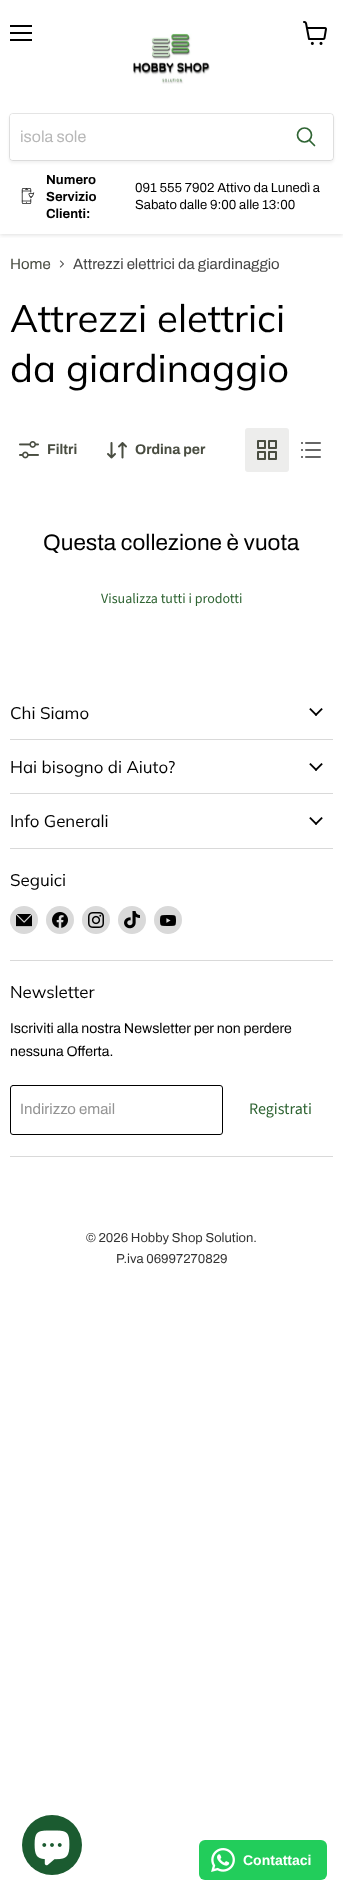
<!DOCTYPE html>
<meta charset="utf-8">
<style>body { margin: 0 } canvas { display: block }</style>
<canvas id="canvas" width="343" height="1896"></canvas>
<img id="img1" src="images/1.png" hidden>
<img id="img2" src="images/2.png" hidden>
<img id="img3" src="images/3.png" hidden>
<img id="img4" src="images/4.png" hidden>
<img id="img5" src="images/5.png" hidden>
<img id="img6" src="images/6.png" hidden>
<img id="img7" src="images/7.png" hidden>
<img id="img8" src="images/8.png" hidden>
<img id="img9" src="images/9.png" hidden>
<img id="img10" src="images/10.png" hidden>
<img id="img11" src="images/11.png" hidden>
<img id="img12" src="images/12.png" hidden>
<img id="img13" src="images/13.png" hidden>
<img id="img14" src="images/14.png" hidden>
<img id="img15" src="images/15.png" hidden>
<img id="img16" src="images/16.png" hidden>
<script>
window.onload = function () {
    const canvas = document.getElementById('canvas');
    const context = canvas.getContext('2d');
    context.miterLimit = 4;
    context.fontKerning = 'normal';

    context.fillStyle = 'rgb(255, 255, 255)';
    context.fillRect(0, 0, 343, 1896);
    context.save();
    context.beginPath();
    context.rect(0, 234, 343, 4);
    context.clip();
    context.fillStyle = 'rgba(128, 128, 128, 0.25)';
    context.filter = 'blur(2px)';
    context.beginPath();
    context.rect(0, 1, 343, 234);
    context.fill();
    context.filter = 'none';
    context.restore();
    context.fillStyle = 'rgb(0, 0, 0)';
    context.fillRect(10, 25, 22, 2);
    context.fillRect(10, 32, 22, 2);
    context.fillRect(10, 39, 22, 2);
    context.drawImage(document.getElementById('img1'), 303, 21, 24, 24);
    context.drawImage(document.getElementById('img2'), 133, 33, 77, 51);
    context.fillStyle = 'rgba(128, 128, 128, 0.11)';
    context.filter = 'blur(1.5px)';
    context.beginPath();
    context.roundRect(9, 115, 325, 48, 4);
    context.fill();
    context.filter = 'none';
    context.beginPath();
    context.roundRect(9.5, 113.5, 324, 47, 3.5);
    context.strokeStyle = 'rgba(128, 128, 128, 0.2)';
    context.stroke();
    context.fillStyle = 'rgb(255, 255, 255)';
    context.beginPath();
    context.roundRect(10, 114, 269, 46, [3, 0, 0, 3]);
    context.fill();
    context.beginPath();
    context.roundRect(279.5, 114.5, 53, 45, [0, 2.5, 2.5, 0]);
    context.fill();
    context.strokeStyle = 'rgb(255, 255, 255)';
    context.stroke();
    context.beginPath();
    context.moveTo(314.5, 145.5);
    context.lineTo(309.5, 140.5);
    context.strokeStyle = 'rgb(47, 100, 51)';
    context.lineWidth = 1.7;
    context.lineCap = 'round';
    context.stroke();
    context.beginPath();
    context.arc(304.5, 135, 7, 0, 2 * Math.PI);
    context.stroke();
    context.drawImage(document.getElementById('img3'), 21, 188, 14, 16);
    context.drawImage(document.getElementById('img4'), 59, 260, 5, 8);
    context.drawImage(document.getElementById('img5'), 19, 441, 20, 18);
    context.drawImage(document.getElementById('img6'), 107, 442, 20, 17);
    context.fillStyle = 'rgb(237, 237, 236)';
    context.beginPath();
    context.roundRect(245, 428, 44, 44, 3);
    context.fill();
    context.drawImage(document.getElementById('img7'), 257, 440, 20, 20);
    context.drawImage(document.getElementById('img8'), 301, 442, 20, 16);
    context.fillStyle = 'rgb(217, 217, 217)';
    context.fillRect(10, 739, 323, 1);
    context.drawImage(document.getElementById('img9'), 309, 708, 14, 8);
    context.fillRect(10, 793, 323, 1);
    context.drawImage(document.getElementById('img9'), 309, 763, 14, 8);
    context.fillRect(10, 848, 323, 1);
    context.drawImage(document.getElementById('img9'), 309, 817, 14, 8);
    context.fillRect(10, 960, 323, 1);
    context.beginPath();
    context.arc(24, 920, 14, 0, 2 * Math.PI);
    context.fill();
    context.drawImage(document.getElementById('img10'), 16, 914, 16, 13);
    context.beginPath();
    context.arc(60, 920, 14, 0, 2 * Math.PI);
    context.fill();
    context.drawImage(document.getElementById('img11'), 52, 912, 16, 16);
    context.beginPath();
    context.arc(96, 920, 14, 0, 2 * Math.PI);
    context.fill();
    context.drawImage(document.getElementById('img12'), 88, 912, 16, 16);
    context.beginPath();
    context.arc(132, 920, 14, 0, 2 * Math.PI);
    context.fill();
    context.drawImage(document.getElementById('img13'), 124, 911, 16, 18);
    context.beginPath();
    context.arc(168, 920, 14, 0, 2 * Math.PI);
    context.fill();
    context.drawImage(document.getElementById('img14'), 160, 915, 16, 11);
    context.fillRect(10, 1156, 323, 1);
    context.beginPath();
    context.roundRect(10.5, 1085.5, 212, 49, 2.5);
    context.strokeStyle = 'rgb(0, 0, 0)';
    context.lineWidth = 1;
    context.stroke();
    context.fillStyle = 'rgb(27, 91, 48)';
    context.beginPath();
    context.arc(52, 1845, 30, 0, 2 * Math.PI);
    context.fill();
    context.drawImage(document.getElementById('img15'), 34, 1830, 36, 36);
    context.fillStyle = 'rgb(34, 205, 91)';
    context.beginPath();
    context.roundRect(199, 1840, 128, 40, 6);
    context.fill();
    context.drawImage(document.getElementById('img16'), 211, 1848, 24, 24);
    context.font = '16px Archivo';
    context.fillStyle = 'rgb(184, 184, 184)';
    context.fillText('isola sole', 20, 142);
    context.font = 'bold 13.1px Archivo';
    context.fillStyle = 'rgb(0, 0, 0)';
    context.fillText('Numero', 46, 184);
    context.fillText('Servizio', 46, 201);
    context.fillText('Clienti:', 46, 218);
    context.font = '13.1px Archivo';
    context.fillText('091 555 7902 Attivo da Lunedì a', 135, 192);
    context.fillText('Sabato dalle 9:00 alle 13:00', 135, 209);
    context.font = '15px Archivo';
    context.fillStyle = 'rgb(73, 77, 65)';
    context.fillText('Home', 10, 269);
    context.fillStyle = 'rgb(70, 70, 70)';
    context.fillText('Attrezzi elettrici da giardinaggio', 73, 269);
    context.font = '38.25px Muli';
    context.fillStyle = 'rgb(0, 0, 0)';
    context.fillText('Attrezzi elettrici', 10, 332);
    context.fillText('da giardinaggio', 10, 382);
    context.font = 'bold 14.1px Archivo';
    context.fillStyle = 'rgb(73, 77, 65)';
    context.fillText('Filtri', 47, 454);
    context.fillText('Ordina per', 135, 454);
    context.font = '22.5px Archivo';
    context.fillStyle = 'rgb(0, 0, 0)';
    context.fillText('Questa collezione è vuota', 43, 550);
    context.font = '14px Source Sans Pro';
    context.fillStyle = 'rgb(47, 100, 51)';
    context.fillText('Visualizza tutti i prodotti', 101, 603);
    context.font = '16.9px Muli';
    context.fillStyle = 'rgb(0, 0, 0)';
    context.fillText('Chi Siamo', 10, 719);
    context.fillText('Hai bisogno di Aiuto?', 10, 773);
    context.fillText('Info Generali', 10, 827);
    context.fillText('Seguici', 10, 886);
    context.fillText('Newsletter', 10, 998);
    context.font = '14.1px Archivo';
    context.fillText('Iscriviti alla nostra Newsletter per non perdere', 10, 1033);
    context.fillText('nessuna Offerta.', 10, 1056);
    context.font = '15px Archivo';
    context.fillStyle = 'rgb(148, 148, 148)';
    context.fillText('Indirizzo email', 20, 1114);
    context.font = '16px Source Sans Pro';
    context.fillStyle = 'rgb(47, 100, 51)';
    context.fillText('Registrati', 249, 1114);
    context.font = '13px Archivo';
    context.fillStyle = 'rgb(51, 51, 51)';
    context.fillText('© 2026 Hobby Shop Solution.', 86, 1242);
    context.fillText('P.iva 06997270829', 116, 1263);
    context.font = 'bold 14px Liberation Sans';
    context.fillStyle = 'rgb(255, 255, 255)';
    context.fillText('Contattaci', 243, 1865);
};
</script>
